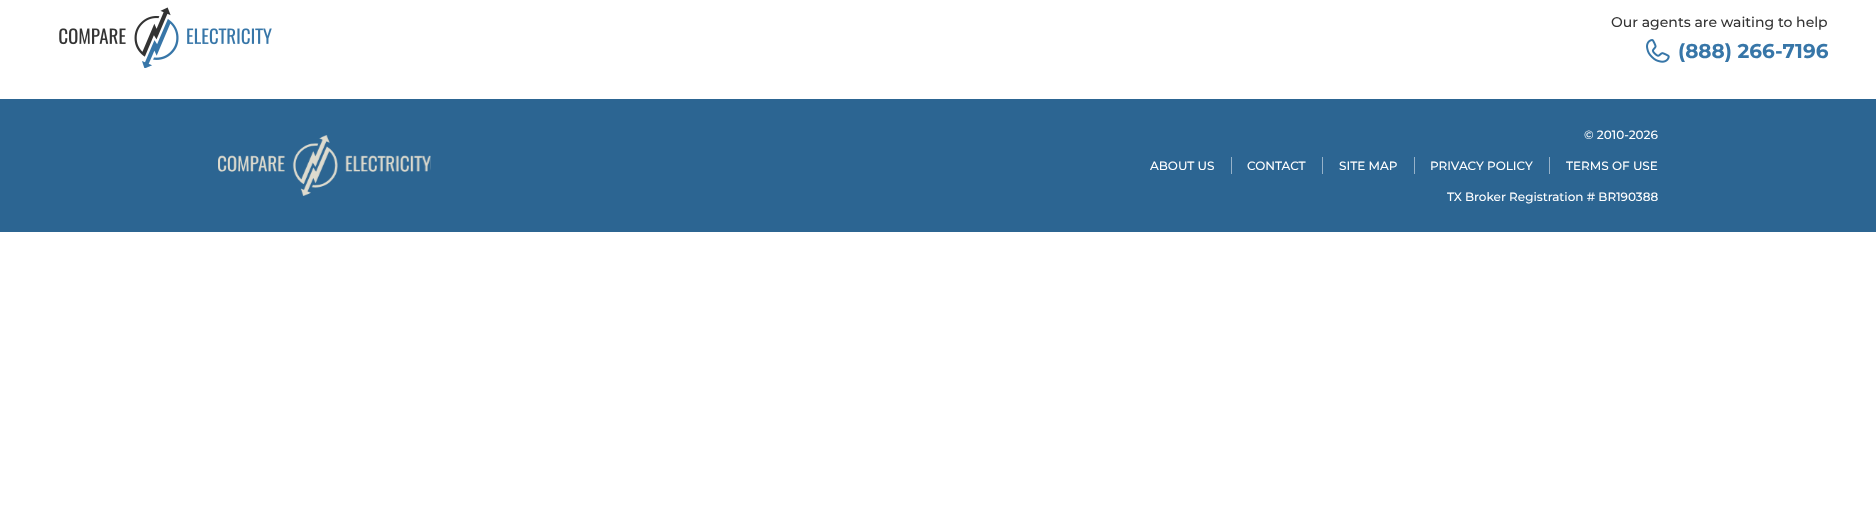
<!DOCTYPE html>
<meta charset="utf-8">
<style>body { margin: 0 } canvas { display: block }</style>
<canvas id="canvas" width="1876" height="517"></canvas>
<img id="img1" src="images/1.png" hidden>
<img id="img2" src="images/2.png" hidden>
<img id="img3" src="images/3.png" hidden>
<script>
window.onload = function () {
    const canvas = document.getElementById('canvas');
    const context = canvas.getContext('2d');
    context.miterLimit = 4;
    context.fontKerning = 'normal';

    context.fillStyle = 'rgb(255, 255, 255)';
    context.fillRect(0, 0, 1876, 517);
    context.drawImage(document.getElementById('img1'), 59, 7, 213, 61);
    context.drawImage(document.getElementById('img2'), 1646, 39, 24, 24);
    context.fillStyle = 'rgb(44, 101, 146)';
    context.fillRect(0, 99, 1876, 133);
    context.drawImage(document.getElementById('img3'), 218, 135, 213, 61);
    context.fillStyle = 'rgb(150, 178, 201)';
    context.fillRect(1231, 157, 1, 17);
    context.fillRect(1322, 157, 1, 17);
    context.fillRect(1414, 157, 1, 17);
    context.fillRect(1549, 157, 1, 17);
    context.font = '500 14px Montserrat';
    context.fillStyle = 'rgb(51, 51, 51)';
    context.fillText('Our agents are waiting to help', 1611, 27);
    context.font = 'bold 20px Montserrat';
    context.fillStyle = 'rgb(55, 118, 168)';
    context.fillText('(888) 266-7196', 1678, 58);
    context.font = '500 12px Montserrat';
    context.fillStyle = 'rgb(255, 255, 255)';
    context.fillText('© 2010-2026', 1584, 139);
    context.fillText('ABOUT US', 1150, 170);
    context.fillText('CONTACT', 1247, 170);
    context.fillText('SITE MAP', 1339, 170);
    context.fillText('PRIVACY POLICY', 1430, 170);
    context.fillText('TERMS OF USE', 1566, 170);
    context.fillText('TX Broker Registration # BR190388', 1447, 201);
};
</script>
